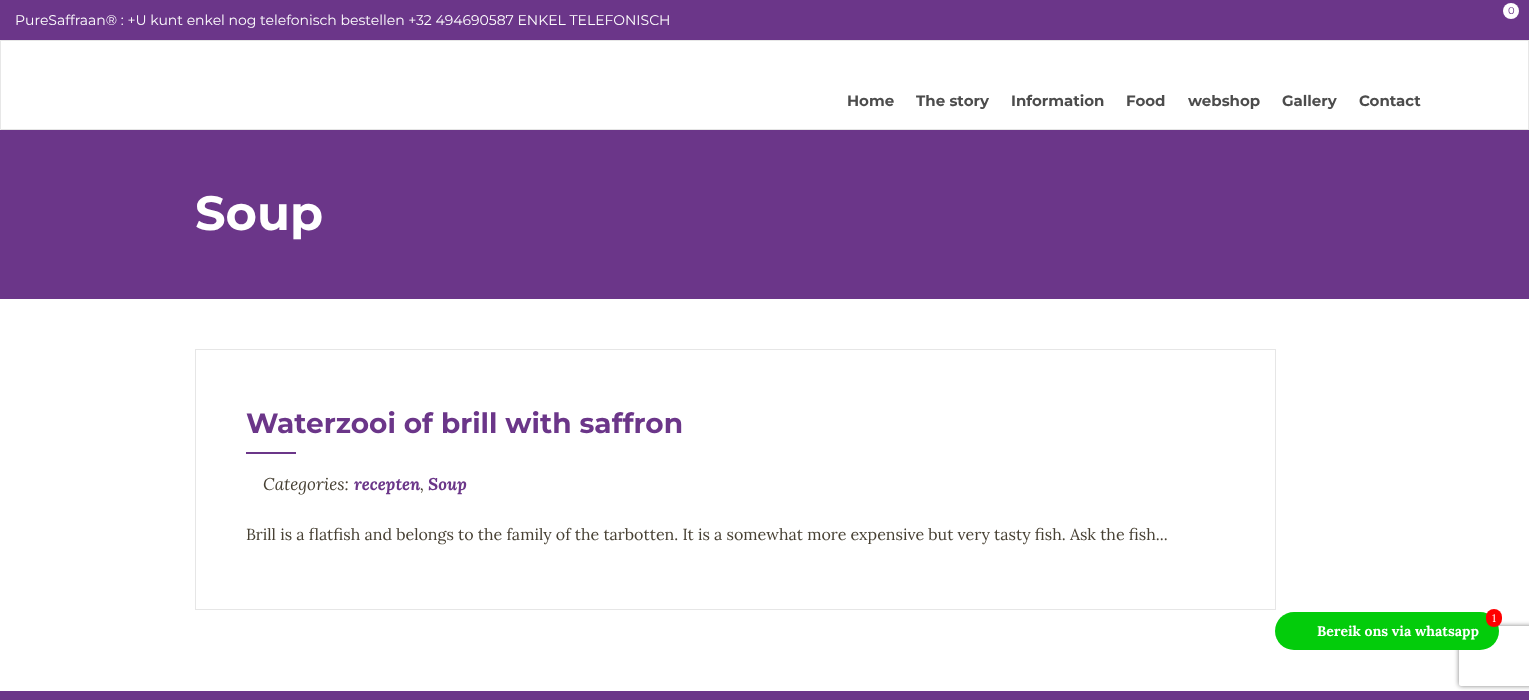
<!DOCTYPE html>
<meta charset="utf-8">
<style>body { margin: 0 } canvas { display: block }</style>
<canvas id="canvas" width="1529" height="700"></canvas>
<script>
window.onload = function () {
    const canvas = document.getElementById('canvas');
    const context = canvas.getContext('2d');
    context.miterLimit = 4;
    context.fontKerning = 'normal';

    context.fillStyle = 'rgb(255, 255, 255)';
    context.fillRect(0, 0, 1529, 700);
    context.fillStyle = 'rgb(107, 54, 137)';
    context.fillRect(0, 0, 1529, 299);
    context.fillStyle = 'rgb(255, 255, 255)';
    context.beginPath();
    context.arc(1511, 11, 8, 0, 2 * Math.PI);
    context.fill();
    context.fillRect(0, 41, 1529, 89);
    context.fillStyle = 'rgb(231, 231, 231)';
    context.fillRect(0, 40, 1529, 1);
    context.beginPath();
    context.moveTo(1529, 40);
    context.lineTo(1529, 130);
    context.lineTo(1528, 129);
    context.lineTo(1528, 41);
    context.closePath();
    context.fill();
    context.fillStyle = 'rgba(0, 0, 0, 0.1)';
    context.beginPath();
    context.moveTo(1529, 130);
    context.lineTo(0, 130);
    context.lineTo(1, 129);
    context.lineTo(1528, 129);
    context.closePath();
    context.fill();
    context.fillStyle = 'rgb(231, 231, 231)';
    context.beginPath();
    context.moveTo(0, 130);
    context.lineTo(0, 40);
    context.lineTo(1, 41);
    context.lineTo(1, 129);
    context.closePath();
    context.fill();
    context.strokeStyle = 'rgb(230, 230, 230)';
    context.strokeRect(195.5, 349.5, 1080, 260);
    context.fillStyle = 'rgb(107, 54, 137)';
    context.fillRect(246, 452, 50, 2);
    context.fillRect(0, 691, 1529, 9);
    context.save();
    context.beginPath();
    context.moveTo(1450, 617);
    context.lineTo(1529, 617);
    context.lineTo(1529, 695);
    context.lineTo(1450, 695);
    context.closePath();
    context.moveTo(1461, 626);
    context.lineTo(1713, 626);
    context.bezierCurveTo(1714, 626, 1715, 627, 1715, 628);
    context.lineTo(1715, 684);
    context.bezierCurveTo(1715, 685, 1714, 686, 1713, 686);
    context.lineTo(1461, 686);
    context.bezierCurveTo(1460, 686, 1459, 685, 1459, 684);
    context.lineTo(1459, 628);
    context.bezierCurveTo(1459, 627, 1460, 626, 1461, 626);
    context.closePath();
    context.clip('evenodd');
    context.fillStyle = 'rgb(128, 128, 128)';
    context.filter = 'blur(2.5px)';
    context.beginPath();
    context.roundRect(1459, 626, 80, 60, 2);
    context.fill();
    context.filter = 'none';
    context.restore();
    context.fillStyle = 'rgb(3, 204, 11)';
    context.beginPath();
    context.roundRect(1275, 612, 224, 38, 19);
    context.fill();
    context.fillStyle = 'rgb(255, 0, 0)';
    context.beginPath();
    context.roundRect(1486, 609, 16, 18, 8);
    context.fill();
    context.font = '10px Montserrat';
    context.fillStyle = 'rgb(107, 54, 137)';
    context.fillText('0', 1508, 14);
    context.font = '14px Montserrat';
    context.fillStyle = 'rgb(255, 255, 255)';
    context.fillText('PureSaffraan® : +U kunt enkel nog telefonisch bestellen +32 494690587 ENKEL TELEFONISCH', 15, 25);
    context.font = 'bold 15px Montserrat';
    context.fillStyle = 'rgb(76, 76, 76)';
    context.fillText('Home', 847, 106);
    context.fillText('The story', 916, 106);
    context.fillText('Information', 1011, 106);
    context.fillText('Food', 1126, 106);
    context.fillText('webshop', 1188, 106);
    context.fillText('Gallery', 1282, 106);
    context.fillText('Contact', 1359, 106);
    context.font = 'bold 48px Montserrat';
    context.fillStyle = 'rgb(255, 255, 255)';
    context.fillText('Soup', 195, 230);
    context.font = 'bold 28px Montserrat';
    context.fillStyle = 'rgb(107, 54, 137)';
    context.fillText('Waterzooi of brill with saffron', 246, 433);
    context.font = 'italic 17px Lora';
    context.fillStyle = 'rgb(71, 64, 51)';
    context.fillText('Categories:', 263, 490);
    context.font = 'italic bold 17px Lora';
    context.fillStyle = 'rgb(107, 54, 137)';
    context.fillText('recepten', 354, 490);
    context.font = 'italic 17px Lora';
    context.fillStyle = 'rgb(71, 64, 51)';
    context.fillText(',', 420, 490);
    context.font = 'italic bold 17px Lora';
    context.fillStyle = 'rgb(107, 54, 137)';
    context.fillText('Soup', 428, 490);
    context.font = '16px Lora';
    context.fillStyle = 'rgb(71, 64, 51)';
    context.fillText('Brill is a flatfish and belongs to the family of the tarbotten. It is a somewhat more expensive but very tasty fish. Ask the fish...', 246, 540);
    context.font = '11px Lora';
    context.fillStyle = 'rgb(255, 255, 255)';
    context.fillText('1', 1492, 622);
    context.font = 'bold 14px Lora';
    context.fillText('Bereik ons via whatsapp', 1317, 636);
};
</script>
